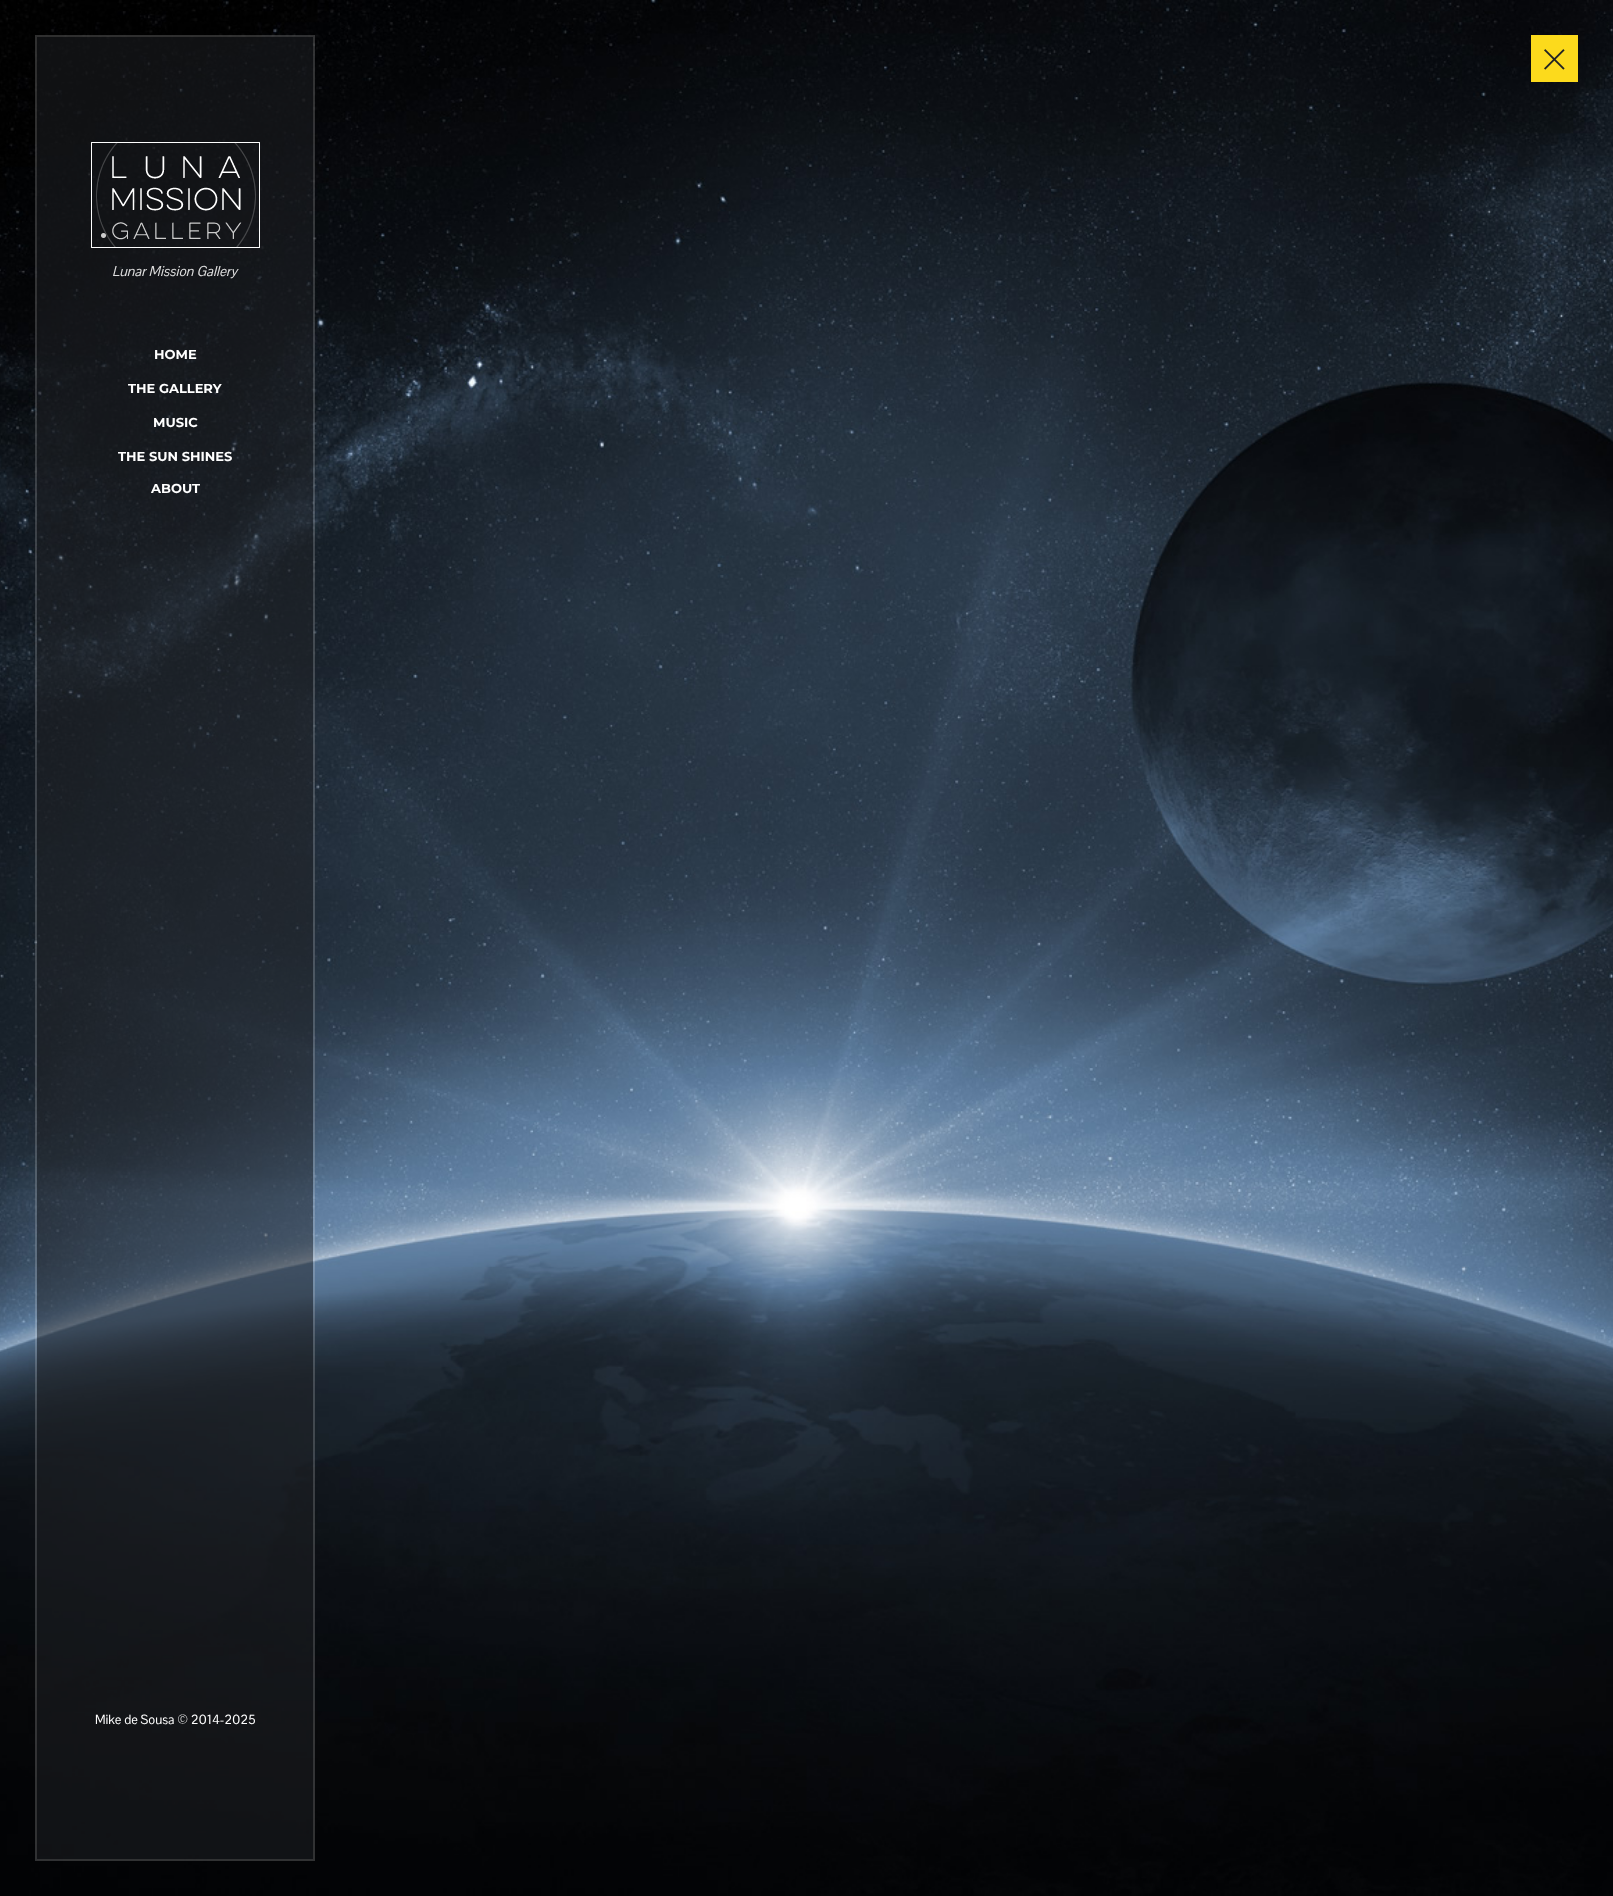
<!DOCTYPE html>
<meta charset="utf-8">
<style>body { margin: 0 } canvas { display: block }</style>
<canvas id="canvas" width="1613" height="1896"></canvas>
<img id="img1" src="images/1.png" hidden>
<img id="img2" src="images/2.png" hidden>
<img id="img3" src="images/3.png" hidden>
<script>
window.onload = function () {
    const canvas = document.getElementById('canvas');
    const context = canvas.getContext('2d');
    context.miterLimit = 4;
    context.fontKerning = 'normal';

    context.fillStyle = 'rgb(255, 255, 255)';
    context.fillRect(0, 0, 1613, 1896);
    context.drawImage(document.getElementById('img1'), 0, 0, 1613, 1896);
    context.fillStyle = 'rgb(252, 218, 28)';
    context.fillRect(1531, 35, 47, 47);
    context.drawImage(document.getElementById('img2'), 1544, 49, 21, 21);
    context.fillStyle = 'rgba(32, 34, 37, 0.5)';
    context.fillRect(37, 37, 276, 1822);
    context.strokeStyle = 'rgba(235, 235, 235, 0.2)';
    context.lineWidth = 2;
    context.strokeRect(36, 36, 278, 1824);
    context.drawImage(document.getElementById('img3'), 91, 142, 169, 106);
    context.font = 'italic 14px Pontano Sans';
    context.fillStyle = 'rgb(221, 221, 221)';
    context.fillText('Lunar Mission Gallery', 112, 276);
    context.font = 'bold 13px Montserrat';
    context.fillStyle = 'rgb(255, 255, 255)';
    context.fillText('HOME', 154, 359);
    context.fillText('THE GALLERY', 128, 393);
    context.fillText('MUSIC', 153, 427);
    context.fillText('THE SUN SHINES', 118, 461);
    context.fillText('ABOUT', 151, 493);
    context.font = '13px Pontano Sans';
    context.fillText('Mike de Sousa © 2014-2025', 95, 1724);
};
</script>
